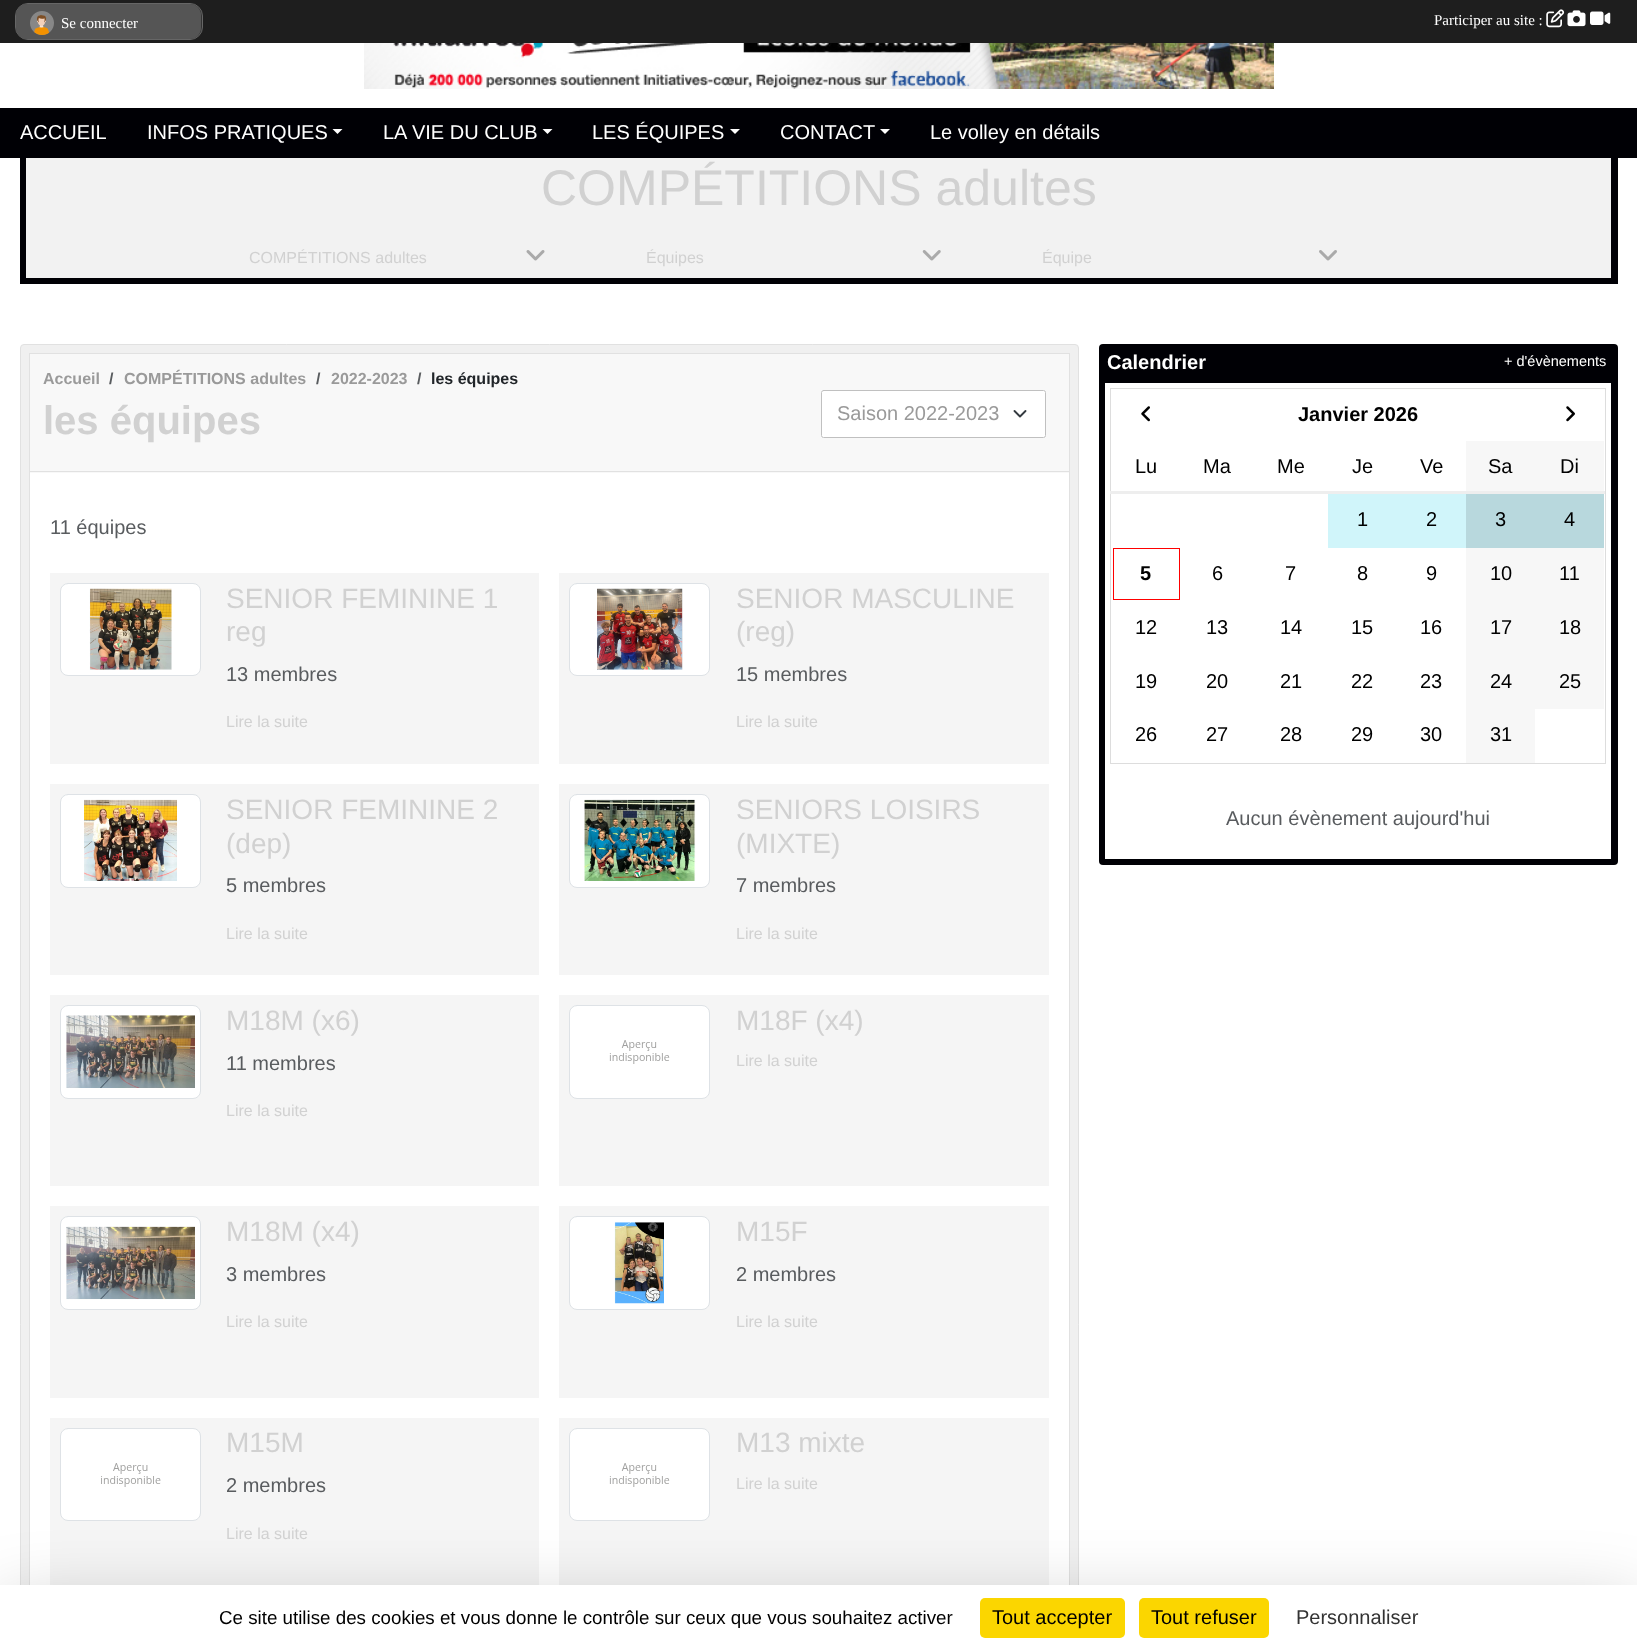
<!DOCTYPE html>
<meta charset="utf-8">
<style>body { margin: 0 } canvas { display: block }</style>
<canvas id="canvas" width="1637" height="1649"></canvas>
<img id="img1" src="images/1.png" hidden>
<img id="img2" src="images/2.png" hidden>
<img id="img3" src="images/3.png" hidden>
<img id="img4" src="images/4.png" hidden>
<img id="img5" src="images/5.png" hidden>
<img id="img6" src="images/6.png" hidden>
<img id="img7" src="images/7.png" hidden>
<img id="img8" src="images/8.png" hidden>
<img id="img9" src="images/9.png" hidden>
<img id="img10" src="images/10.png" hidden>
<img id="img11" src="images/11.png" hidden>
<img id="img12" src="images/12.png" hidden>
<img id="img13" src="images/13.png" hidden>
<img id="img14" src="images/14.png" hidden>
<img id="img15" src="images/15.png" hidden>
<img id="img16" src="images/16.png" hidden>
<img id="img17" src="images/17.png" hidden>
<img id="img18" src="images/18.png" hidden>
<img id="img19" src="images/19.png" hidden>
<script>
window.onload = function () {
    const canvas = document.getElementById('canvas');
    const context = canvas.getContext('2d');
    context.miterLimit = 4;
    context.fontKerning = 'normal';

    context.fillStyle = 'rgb(255, 255, 255)';
    context.fillRect(0, 0, 1637, 1649);
    context.fillStyle = 'rgb(30, 30, 30)';
    context.fillRect(0, 0, 1637, 43);
    context.fillStyle = 'rgb(51, 51, 51)';
    context.beginPath();
    context.roundRect(15.5, 3.5, 187, 36, 12.5);
    context.fill();
    context.strokeStyle = 'rgb(102, 102, 102)';
    context.stroke();
    context.fillStyle = 'rgb(85, 85, 85)';
    context.beginPath();
    context.roundRect(16, 4, 185, 35, 11);
    context.fill();
    context.drawImage(document.getElementById('img1'), 30, 11, 24, 24);
    context.drawImage(document.getElementById('img2'), 1546, 9, 19, 19);
    context.drawImage(document.getElementById('img3'), 1567, 10, 19, 17);
    context.drawImage(document.getElementById('img4'), 1590, 11, 21, 14);
    context.drawImage(document.getElementById('img5'), 364, 43, 910, 46);
    context.fillStyle = 'rgb(0, 0, 5)';
    context.fillRect(0, 108, 1637, 50);
    context.fillStyle = 'rgb(255, 255, 255)';
    context.beginPath();
    context.moveTo(332.5, 129);
    context.lineTo(342.5, 129);
    context.lineTo(337.5, 134);
    context.closePath();
    context.fill();
    context.beginPath();
    context.moveTo(542.5, 129);
    context.lineTo(552.5, 129);
    context.lineTo(547.5, 134);
    context.closePath();
    context.fill();
    context.beginPath();
    context.moveTo(730, 129);
    context.lineTo(740, 129);
    context.lineTo(735, 134);
    context.closePath();
    context.fill();
    context.beginPath();
    context.moveTo(880, 129);
    context.lineTo(890, 129);
    context.lineTo(885, 134);
    context.closePath();
    context.fill();
    context.fillStyle = 'rgb(242, 242, 242)';
    context.fillRect(26, 158, 1585, 120);
    context.fillStyle = 'rgb(0, 0, 5)';
    context.fillRect(1611, 158, 7, 126);
    context.fillRect(20, 278, 1598, 6);
    context.fillRect(20, 158, 6, 126);
    context.drawImage(document.getElementById('img6'), 526, 250, 19, 11);
    context.drawImage(document.getElementById('img7'), 922, 250, 19, 11);
    context.drawImage(document.getElementById('img8'), 1319, 250, 18, 11);
    context.fillStyle = 'rgb(240, 240, 240)';
    context.beginPath();
    context.roundRect(20.5, 344.5, 1058, 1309, 3.5);
    context.fill();
    context.strokeStyle = 'rgb(225, 225, 225)';
    context.stroke();
    context.fillStyle = 'rgb(255, 255, 255)';
    context.fillRect(30, 473, 1039, 1112);
    context.strokeRect(29.5, 353.5, 1040, 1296);
    context.fillStyle = 'rgb(248, 248, 248)';
    context.fillRect(30, 354, 1039, 119);
    context.fillStyle = 'rgb(225, 225, 225)';
    context.fillRect(30, 471, 1039, 1);
    context.fillStyle = 'rgb(255, 255, 255)';
    context.beginPath();
    context.roundRect(821, 390, 225, 48, 2.5);
    context.fill();
    context.beginPath();
    context.moveTo(1014.5, 411);
    context.lineTo(1020, 416.5);
    context.lineTo(1025.5, 411);
    context.strokeStyle = 'rgb(52, 58, 64)';
    context.lineWidth = 1.9;
    context.lineCap = 'round';
    context.lineJoin = 'round';
    context.stroke();
    context.beginPath();
    context.roundRect(821.5, 390.5, 224, 47, 2);
    context.strokeStyle = 'rgb(192, 192, 192)';
    context.lineWidth = 1;
    context.lineJoin = 'miter';
    context.stroke();
    context.fillStyle = 'rgb(245, 245, 245)';
    context.fillRect(50, 573, 489, 191);
    context.fillStyle = 'rgb(255, 255, 255)';
    context.beginPath();
    context.roundRect(60.5, 583.5, 140, 92, 7.5);
    context.fill();
    context.strokeStyle = 'rgb(222, 226, 230)';
    context.stroke();
    context.drawImage(document.getElementById('img9'), 89, 588, 83, 82);
    context.fillStyle = 'rgb(245, 245, 245)';
    context.fillRect(559, 573, 490, 191);
    context.fillStyle = 'rgb(255, 255, 255)';
    context.beginPath();
    context.roundRect(569.5, 583.5, 140, 92, 7.5);
    context.fill();
    context.stroke();
    context.drawImage(document.getElementById('img10'), 597, 588, 86, 82);
    context.fillStyle = 'rgb(245, 245, 245)';
    context.fillRect(50, 784, 489, 191);
    context.fillStyle = 'rgb(255, 255, 255)';
    context.beginPath();
    context.roundRect(60.5, 794.5, 140, 93, 7.5);
    context.fill();
    context.stroke();
    context.drawImage(document.getElementById('img11'), 84, 799, 93, 82);
    context.fillStyle = 'rgb(245, 245, 245)';
    context.fillRect(559, 784, 490, 191);
    context.fillStyle = 'rgb(255, 255, 255)';
    context.beginPath();
    context.roundRect(569.5, 794.5, 140, 93, 7.5);
    context.fill();
    context.stroke();
    context.drawImage(document.getElementById('img12'), 584, 799, 112, 82);
    context.fillStyle = 'rgb(245, 245, 245)';
    context.fillRect(50, 995, 489, 191);
    context.fillStyle = 'rgb(255, 255, 255)';
    context.beginPath();
    context.roundRect(60.5, 1005.5, 140, 93, 7.5);
    context.fill();
    context.stroke();
    context.drawImage(document.getElementById('img13'), 66, 1015, 129, 73);
    context.fillStyle = 'rgb(245, 245, 245)';
    context.fillRect(559, 995, 490, 191);
    context.fillStyle = 'rgb(255, 255, 255)';
    context.beginPath();
    context.roundRect(569.5, 1005.5, 140, 93, 7.5);
    context.fill();
    context.stroke();
    context.drawImage(document.getElementById('img14'), 609, 1040, 61, 24);
    context.fillStyle = 'rgb(245, 245, 245)';
    context.fillRect(50, 1206, 489, 192);
    context.fillStyle = 'rgb(255, 255, 255)';
    context.beginPath();
    context.roundRect(60.5, 1216.5, 140, 93, 7.5);
    context.fill();
    context.stroke();
    context.drawImage(document.getElementById('img15'), 66, 1226, 129, 74);
    context.fillStyle = 'rgb(245, 245, 245)';
    context.fillRect(559, 1206, 490, 192);
    context.fillStyle = 'rgb(255, 255, 255)';
    context.beginPath();
    context.roundRect(569.5, 1216.5, 140, 93, 7.5);
    context.fill();
    context.stroke();
    context.drawImage(document.getElementById('img16'), 614, 1222, 50, 82);
    context.fillStyle = 'rgb(245, 245, 245)';
    context.fillRect(50, 1418, 489, 167);
    context.fillStyle = 'rgb(255, 255, 255)';
    context.beginPath();
    context.roundRect(60.5, 1428.5, 140, 92, 7.5);
    context.fill();
    context.stroke();
    context.drawImage(document.getElementById('img17'), 101, 1463, 60, 24);
    context.fillStyle = 'rgb(245, 245, 245)';
    context.fillRect(559, 1418, 490, 167);
    context.fillStyle = 'rgb(255, 255, 255)';
    context.beginPath();
    context.roundRect(569.5, 1428.5, 140, 92, 7.5);
    context.fill();
    context.stroke();
    context.drawImage(document.getElementById('img14'), 609, 1463, 61, 24);
    context.fillStyle = 'rgb(0, 0, 5)';
    context.beginPath();
    context.roundRect(1099, 344, 519, 521, 4);
    context.fill();
    context.fillStyle = 'rgb(255, 255, 255)';
    context.fillRect(1105, 383, 506, 476);
    context.strokeStyle = 'rgb(221, 221, 221)';
    context.strokeRect(1110.5, 388.5, 495, 375);
    context.fillStyle = 'rgb(238, 238, 238)';
    context.fillRect(1110, 491, 495, 3);
    context.drawImage(document.getElementById('img18'), 1141, 406, 9, 16);
    context.drawImage(document.getElementById('img19'), 1566, 406, 9, 16);
    context.fillStyle = 'rgb(247, 247, 247)';
    context.fillRect(1466, 441, 138, 50);
    context.fillStyle = 'rgb(208, 245, 250)';
    context.fillRect(1328, 494, 138, 54);
    context.fillStyle = 'rgb(184, 216, 221)';
    context.fillRect(1466, 494, 138, 54);
    context.strokeStyle = 'rgb(255, 0, 0)';
    context.strokeRect(1113.5, 548.5, 66, 51);
    context.fillStyle = 'rgb(247, 247, 247)';
    context.fillRect(1466, 548, 138, 53);
    context.fillRect(1466, 601, 138, 54);
    context.fillRect(1466, 655, 138, 54);
    context.fillRect(1466, 709, 69, 54);
    context.fillStyle = 'rgba(0, 0, 0, 0.25)';
    context.filter = 'blur(37.5px)';
    context.beginPath();
    context.rect(0, 1610, 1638, 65);
    context.fill();
    context.filter = 'none';
    context.fillStyle = 'rgb(255, 255, 255)';
    context.fillRect(0, 1585, 1637, 64);
    context.fillStyle = 'rgb(251, 214, 0)';
    context.beginPath();
    context.roundRect(980, 1598, 145, 40, 5);
    context.fill();
    context.beginPath();
    context.roundRect(1139, 1598, 130, 40, 5);
    context.fill();
    context.font = '15px Liberation Serif';
    context.fillStyle = 'rgb(255, 255, 255)';
    context.fillText('Se connecter', 61, 28);
    context.fillText('Participer au site :', 1434, 25);
    context.font = '20px Liberation Sans';
    context.fillText('ACCUEIL', 20, 139);
    context.fillText('INFOS PRATIQUES', 147, 139);
    context.fillText('LA VIE DU CLUB', 383, 139);
    context.fillText('LES ÉQUIPES', 592, 139);
    context.fillText('CONTACT', 780, 139);
    context.fillText('Le volley en détails', 930, 139);
    context.font = '50px Liberation Sans';
    context.fillStyle = 'rgb(209, 209, 209)';
    context.fillText('COMPÉTITIONS adultes', 541, 205);
    context.font = '16px Liberation Sans';
    context.fillText('COMPÉTITIONS adultes', 249, 263);
    context.fillText('Équipes', 646, 263);
    context.fillText('Équipe', 1042, 263);
    context.font = 'bold 16px Liberation Sans';
    context.fillStyle = 'rgb(154, 154, 154)';
    context.fillText('Accueil', 43, 384);
    context.fillStyle = 'rgb(89, 92, 95)';
    context.fillText('/', 109, 384);
    context.fillStyle = 'rgb(154, 154, 154)';
    context.fillText('COMPÉTITIONS adultes', 124, 384);
    context.fillStyle = 'rgb(89, 92, 95)';
    context.fillText('/', 316, 384);
    context.fillStyle = 'rgb(154, 154, 154)';
    context.fillText('2022-2023', 331, 384);
    context.fillStyle = 'rgb(89, 92, 95)';
    context.fillText('/', 417, 384);
    context.fillStyle = 'rgb(33, 37, 41)';
    context.fillText('les équipes', 431, 384);
    context.font = 'bold 40px Liberation Sans';
    context.fillStyle = 'rgb(209, 209, 209)';
    context.fillText('les équipes', 43, 434);
    context.font = '20px Liberation Sans';
    context.fillStyle = 'rgb(154, 154, 154)';
    context.fillText('Saison 2022-2023', 837, 420);
    context.fillStyle = 'rgb(89, 92, 95)';
    context.fillText('11 équipes', 50, 534);
    context.font = '28px Liberation Sans';
    context.fillStyle = 'rgb(209, 209, 209)';
    context.fillText('SENIOR FEMININE 1', 226, 608);
    context.fillText('reg', 226, 641);
    context.font = '20px Liberation Sans';
    context.fillStyle = 'rgb(89, 92, 95)';
    context.fillText('13 membres', 226, 681);
    context.font = '16px Liberation Sans';
    context.fillStyle = 'rgb(209, 209, 209)';
    context.fillText('Lire la suite', 226, 727);
    context.font = '28px Liberation Sans';
    context.fillText('SENIOR MASCULINE', 736, 608);
    context.fillText('(reg)', 736, 641);
    context.font = '20px Liberation Sans';
    context.fillStyle = 'rgb(89, 92, 95)';
    context.fillText('15 membres', 736, 681);
    context.font = '16px Liberation Sans';
    context.fillStyle = 'rgb(209, 209, 209)';
    context.fillText('Lire la suite', 736, 727);
    context.font = '28px Liberation Sans';
    context.fillText('SENIOR FEMININE 2', 226, 819);
    context.fillText('(dep)', 226, 853);
    context.font = '20px Liberation Sans';
    context.fillStyle = 'rgb(89, 92, 95)';
    context.fillText('5 membres', 226, 892);
    context.font = '16px Liberation Sans';
    context.fillStyle = 'rgb(209, 209, 209)';
    context.fillText('Lire la suite', 226, 939);
    context.font = '28px Liberation Sans';
    context.fillText('SENIORS LOISIRS', 736, 819);
    context.fillText('(MIXTE)', 736, 853);
    context.font = '20px Liberation Sans';
    context.fillStyle = 'rgb(89, 92, 95)';
    context.fillText('7 membres', 736, 892);
    context.font = '16px Liberation Sans';
    context.fillStyle = 'rgb(209, 209, 209)';
    context.fillText('Lire la suite', 736, 939);
    context.font = '28px Liberation Sans';
    context.fillText('M18M (x6)', 226, 1030);
    context.font = '20px Liberation Sans';
    context.fillStyle = 'rgb(89, 92, 95)';
    context.fillText('11 membres', 226, 1070);
    context.font = '16px Liberation Sans';
    context.fillStyle = 'rgb(209, 209, 209)';
    context.fillText('Lire la suite', 226, 1116);
    context.font = '28px Liberation Sans';
    context.fillText('M18F (x4)', 736, 1030);
    context.font = '16px Liberation Sans';
    context.fillText('Lire la suite', 736, 1066);
    context.font = '28px Liberation Sans';
    context.fillText('M18M (x4)', 226, 1241);
    context.font = '20px Liberation Sans';
    context.fillStyle = 'rgb(89, 92, 95)';
    context.fillText('3 membres', 226, 1281);
    context.font = '16px Liberation Sans';
    context.fillStyle = 'rgb(209, 209, 209)';
    context.fillText('Lire la suite', 226, 1327);
    context.font = '28px Liberation Sans';
    context.fillText('M15F', 736, 1241);
    context.font = '20px Liberation Sans';
    context.fillStyle = 'rgb(89, 92, 95)';
    context.fillText('2 membres', 736, 1281);
    context.font = '16px Liberation Sans';
    context.fillStyle = 'rgb(209, 209, 209)';
    context.fillText('Lire la suite', 736, 1327);
    context.font = '28px Liberation Sans';
    context.fillText('M15M', 226, 1452);
    context.font = '20px Liberation Sans';
    context.fillStyle = 'rgb(89, 92, 95)';
    context.fillText('2 membres', 226, 1492);
    context.font = '16px Liberation Sans';
    context.fillStyle = 'rgb(209, 209, 209)';
    context.fillText('Lire la suite', 226, 1539);
    context.font = '28px Liberation Sans';
    context.fillText('M13 mixte', 736, 1452);
    context.font = '16px Liberation Sans';
    context.fillText('Lire la suite', 736, 1489);
    context.font = 'bold 20px Liberation Sans';
    context.fillStyle = 'rgb(255, 255, 255)';
    context.fillText('Calendrier', 1107, 369);
    context.fillStyle = 'rgb(0, 0, 0)';
    context.fillText('Janvier 2026', 1298, 421);
    context.font = '20px Liberation Sans';
    context.fillText('Lu', 1135, 473);
    context.fillText('Ma', 1203, 473);
    context.fillText('Me', 1277, 473);
    context.fillText('Je', 1352, 473);
    context.fillText('Ve', 1420, 473);
    context.fillText('Sa', 1488, 473);
    context.fillText('Di', 1560, 473);
    context.fillText('1', 1357, 526);
    context.fillText('2', 1426, 526);
    context.fillText('3', 1495, 526);
    context.fillText('4', 1564, 526);
    context.font = 'bold 20px Liberation Sans';
    context.fillText('5', 1140, 580);
    context.font = '20px Liberation Sans';
    context.fillText('6', 1212, 580);
    context.fillText('7', 1285, 580);
    context.fillText('8', 1357, 580);
    context.fillText('9', 1426, 580);
    context.fillText('10', 1490, 580);
    context.fillText('11', 1559, 580);
    context.fillText('12', 1135, 634);
    context.fillText('13', 1206, 634);
    context.fillText('14', 1280, 634);
    context.fillText('15', 1351, 634);
    context.fillText('16', 1420, 634);
    context.fillText('17', 1490, 634);
    context.fillText('18', 1559, 634);
    context.fillText('19', 1135, 688);
    context.fillText('20', 1206, 688);
    context.fillText('21', 1280, 688);
    context.fillText('22', 1351, 688);
    context.fillText('23', 1420, 688);
    context.fillText('24', 1490, 688);
    context.fillText('25', 1559, 688);
    context.fillText('26', 1135, 741);
    context.fillText('27', 1206, 741);
    context.fillText('28', 1280, 741);
    context.fillText('29', 1351, 741);
    context.fillText('30', 1420, 741);
    context.fillText('31', 1490, 741);
    context.fillStyle = 'rgb(89, 92, 95)';
    context.fillText('Aucun évènement aujourd\'hui', 1226, 825);
    context.font = '14.5px Liberation Sans';
    context.fillStyle = 'rgb(255, 255, 255)';
    context.fillText('+ d\'évènements', 1504, 366);
    context.font = '18.75px Liberation Sans';
    context.fillStyle = 'rgb(0, 0, 0)';
    context.fillText('Ce site utilise des cookies et vous donne le contrôle sur ceux que vous souhaitez activer', 219, 1624);
    context.font = '20px Liberation Sans';
    context.fillText('Tout accepter', 992, 1624);
    context.fillText('Tout refuser', 1151, 1624);
    context.fillStyle = 'rgb(51, 51, 51)';
    context.fillText('Personnaliser', 1296, 1624);
};
</script>
